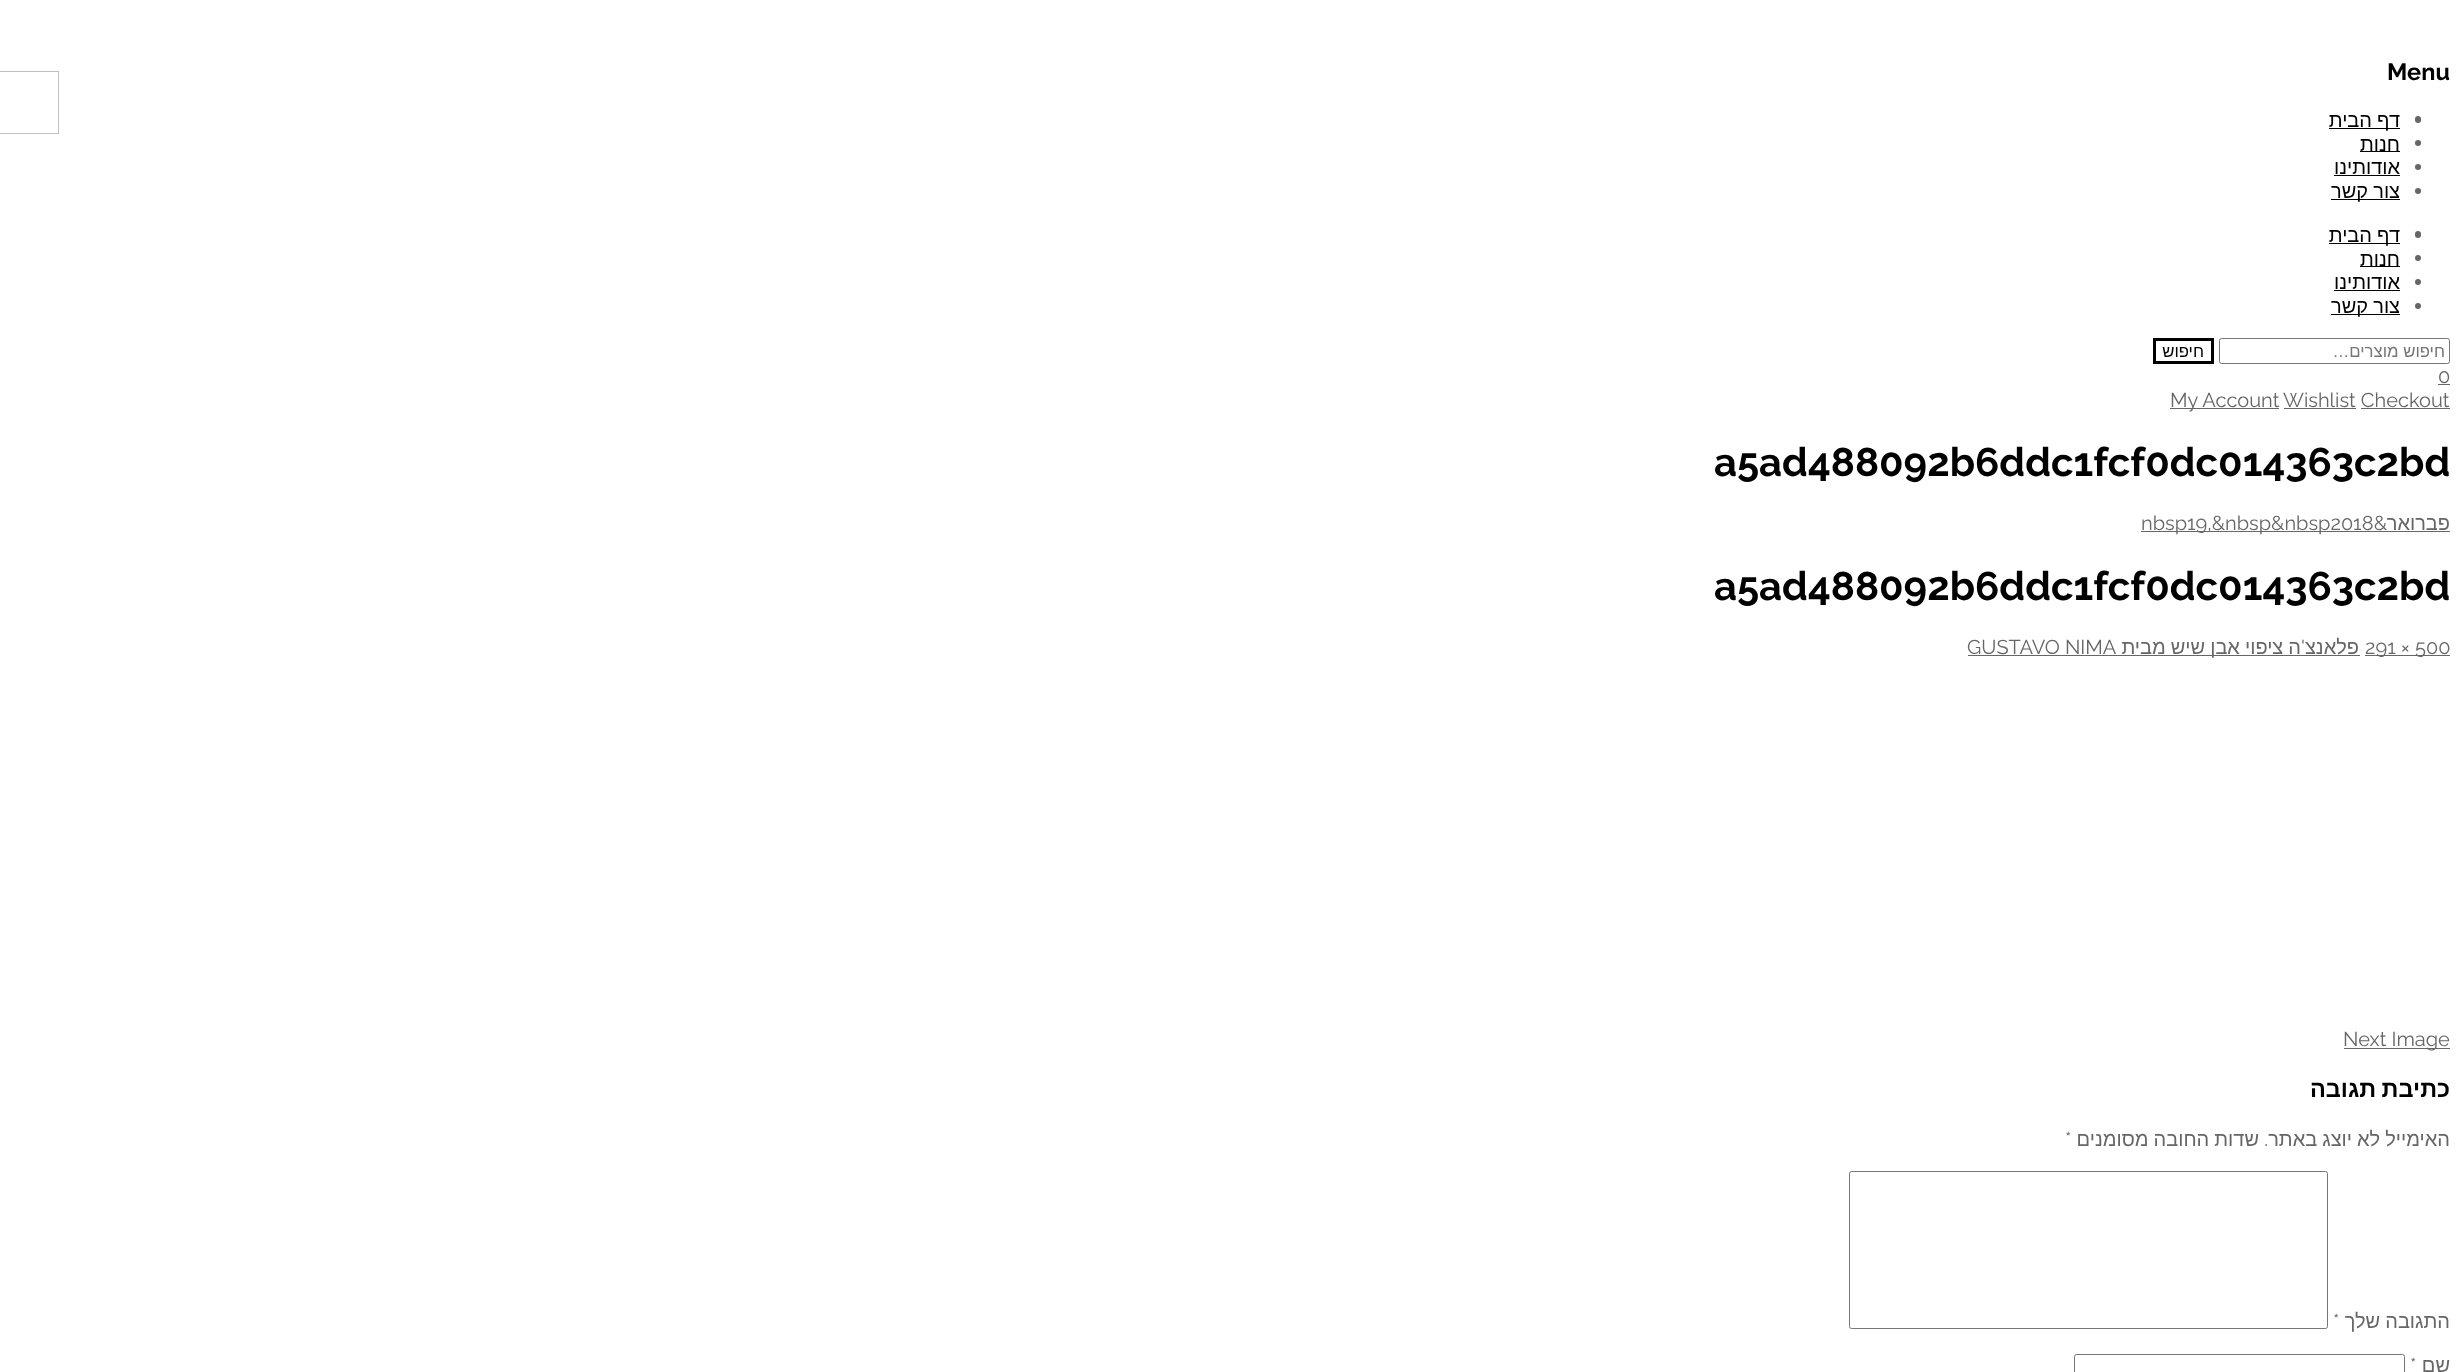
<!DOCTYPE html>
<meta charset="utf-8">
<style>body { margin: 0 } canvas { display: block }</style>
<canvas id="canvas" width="2459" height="1372"></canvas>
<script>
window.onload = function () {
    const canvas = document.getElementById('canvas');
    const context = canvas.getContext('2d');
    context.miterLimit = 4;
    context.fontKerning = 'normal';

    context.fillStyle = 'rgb(255, 255, 255)';
    context.fillRect(0, 0, 2459, 1372);
    context.fillStyle = 'rgb(102, 102, 102)';
    context.beginPath();
    context.roundRect(2415, 116, 6, 7, 3);
    context.fill();
    context.fillStyle = 'rgb(0, 0, 0)';
    context.fillRect(2329, 128, 71, 1);
    context.fillStyle = 'rgb(102, 102, 102)';
    context.beginPath();
    context.arc(2418, 143, 3, 0, 2 * Math.PI);
    context.fill();
    context.fillStyle = 'rgb(0, 0, 0)';
    context.fillRect(2360, 151, 40, 1);
    context.fillStyle = 'rgb(102, 102, 102)';
    context.beginPath();
    context.arc(2418, 167, 3, 0, 2 * Math.PI);
    context.fill();
    context.fillStyle = 'rgb(0, 0, 0)';
    context.fillRect(2334, 175, 66, 1);
    context.fillStyle = 'rgb(102, 102, 102)';
    context.beginPath();
    context.arc(2418, 191, 3, 0, 2 * Math.PI);
    context.fill();
    context.fillStyle = 'rgb(0, 0, 0)';
    context.fillRect(2331, 199, 69, 1);
    context.fillStyle = 'rgb(102, 102, 102)';
    context.beginPath();
    context.roundRect(2415, 231, 6, 7, 3);
    context.fill();
    context.fillStyle = 'rgb(0, 0, 0)';
    context.fillRect(2329, 243, 71, 1);
    context.fillStyle = 'rgb(102, 102, 102)';
    context.beginPath();
    context.arc(2418, 258, 3, 0, 2 * Math.PI);
    context.fill();
    context.fillStyle = 'rgb(0, 0, 0)';
    context.fillRect(2360, 266, 40, 1);
    context.fillStyle = 'rgb(102, 102, 102)';
    context.beginPath();
    context.arc(2418, 282, 3, 0, 2 * Math.PI);
    context.fill();
    context.fillStyle = 'rgb(0, 0, 0)';
    context.fillRect(2334, 290, 66, 1);
    context.fillStyle = 'rgb(102, 102, 102)';
    context.beginPath();
    context.arc(2418, 306, 3, 0, 2 * Math.PI);
    context.fill();
    context.fillStyle = 'rgb(0, 0, 0)';
    context.fillRect(2331, 314, 69, 1);
    context.beginPath();
    context.roundRect(2219.5, 338.5, 230, 25, 2);
    context.strokeStyle = 'rgb(118, 118, 118)';
    context.stroke();
    context.strokeStyle = 'rgb(0, 0, 0)';
    context.lineWidth = 3;
    context.strokeRect(2154.5, 339.5, 58, 23);
    context.fillStyle = 'rgb(102, 102, 102)';
    context.fillRect(2438, 384, 12, 1);
    context.fillRect(2284, 408, 72, 1);
    context.fillRect(2170, 408, 109, 1);
    context.fillRect(2361, 408, 89, 1);
    context.fillRect(2141, 531, 309, 1);
    context.fillRect(2365, 655, 85, 1);
    context.fillRect(1968, 655, 392, 1);
    context.fillRect(2344, 1048, 106, 1);
    context.beginPath();
    context.roundRect(1849.5, 1171.5, 478, 157, 2);
    context.strokeStyle = 'rgb(118, 118, 118)';
    context.lineWidth = 1;
    context.stroke();
    context.beginPath();
    context.roundRect(2074.5, 1354.5, 330, 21, 2);
    context.stroke();
    context.fillStyle = 'rgb(185, 193, 203)';
    context.fillRect(0, 71, 59, 1);
    context.fillRect(58, 71, 1, 63);
    context.fillRect(0, 133, 59, 1);
    context.font = 'bold 23.5px Raleway';
    context.fillStyle = 'rgb(0, 0, 0)';
    context.fillText('Menu', 2387, 80);
    context.wordSpacing = '-0.5px';
    context.direction = 'rtl';
    context.font = '20px Liberation Sans';
    context.fillText('דף הבית', 2400, 127);
    context.wordSpacing = '0px';
    context.fillText('חנות', 2400, 151);
    context.fillText('אודותינו', 2400, 174);
    context.wordSpacing = '-0.5px';
    context.fillText('צור קשר', 2400, 198);
    context.fillText('דף הבית', 2400, 242);
    context.wordSpacing = '0px';
    context.fillText('חנות', 2400, 266);
    context.fillText('אודותינו', 2400, 289);
    context.wordSpacing = '-0.5px';
    context.fillText('צור קשר', 2400, 313);
    context.wordSpacing = '0px';
    context.font = '16.75px Liberation Sans';
    context.fillStyle = 'rgb(117, 117, 117)';
    context.fillText('חיפוש מוצרים…', 2445, 357);
    context.fillStyle = 'rgb(0, 0, 0)';
    context.fillText('חיפוש', 2204, 357);
    context.direction = 'ltr';
    context.font = '100 20px Raleway';
    context.fillStyle = 'rgb(102, 102, 102)';
    context.fillText('0', 2438, 383);
    context.fillText('Wishlist Checkout', 2283, 407);
    context.fillText('My Account', 2170, 407);
    context.font = 'bold 40px Raleway';
    context.fillStyle = 'rgb(0, 0, 0)';
    context.fillText('a5ad488092b6ddc1fcf0dc014363c2bd', 1714, 476);
    context.direction = 'rtl';
    context.font = '20px Liberation Sans';
    context.fillStyle = 'rgb(102, 102, 102)';
    context.fillText('פברואר', 2450, 530);
    context.font = '100 20px Raleway';
    context.fillText('&', 2387, 530);
    context.direction = 'ltr';
    context.fillText('nbsp19,&nbsp&nbsp2018', 2141, 530);
    context.font = 'bold 40px Raleway';
    context.fillStyle = 'rgb(0, 0, 0)';
    context.fillText('a5ad488092b6ddc1fcf0dc014363c2bd', 1714, 600);
    context.font = '100 20px Raleway';
    context.fillStyle = 'rgb(102, 102, 102)';
    context.fillText('291 × 500', 2365, 654);
    context.direction = 'rtl';
    context.font = '20px Liberation Sans';
    context.fillText('פלאנצ', 2359, 654);
    context.font = '100 20px Raleway';
    context.fillText('\'', 2305, 654);
    context.wordSpacing = '-0.5px';
    context.font = '20px Liberation Sans';
    context.fillText('ה ציפוי אבן שיש מבית', 2301, 654);
    context.wordSpacing = '0px';
    context.direction = 'ltr';
    context.font = '100 20px Raleway';
    context.fillText('GUSTAVO NIMA', 1967, 654);
    context.fillText('Next Image', 2343, 1046);
    context.wordSpacing = '-1px';
    context.direction = 'rtl';
    context.font = 'bold 23.5px Liberation Sans';
    context.fillStyle = 'rgb(0, 0, 0)';
    context.fillText('כתיבת תגובה', 2450, 1097);
    context.wordSpacing = '-0.5px';
    context.font = '20px Liberation Sans';
    context.fillStyle = 'rgb(102, 102, 102)';
    context.fillText('האימייל לא יוצג באתר', 2450, 1146);
    context.wordSpacing = '0px';
    context.font = '100 20px Raleway';
    context.fillText('.', 2268, 1146);
    context.wordSpacing = '-0.5px';
    context.font = '20px Liberation Sans';
    context.fillText('שדות החובה מסומנים', 2259, 1146);
    context.wordSpacing = '0px';
    context.direction = 'ltr';
    context.font = '100 20px Raleway';
    context.fillText('*', 2065, 1146);
    context.wordSpacing = '-0.5px';
    context.direction = 'rtl';
    context.font = '20px Liberation Sans';
    context.fillText('התגובה שלך', 2450, 1328);
    context.wordSpacing = '0px';
    context.direction = 'ltr';
    context.font = '100 20px Raleway';
    context.fillText('*', 2333, 1328);
    context.fillText('*', 2410, 1372);
    context.direction = 'rtl';
    context.font = '20px Liberation Sans';
    context.fillText('שם', 2450, 1372);
};
</script>
